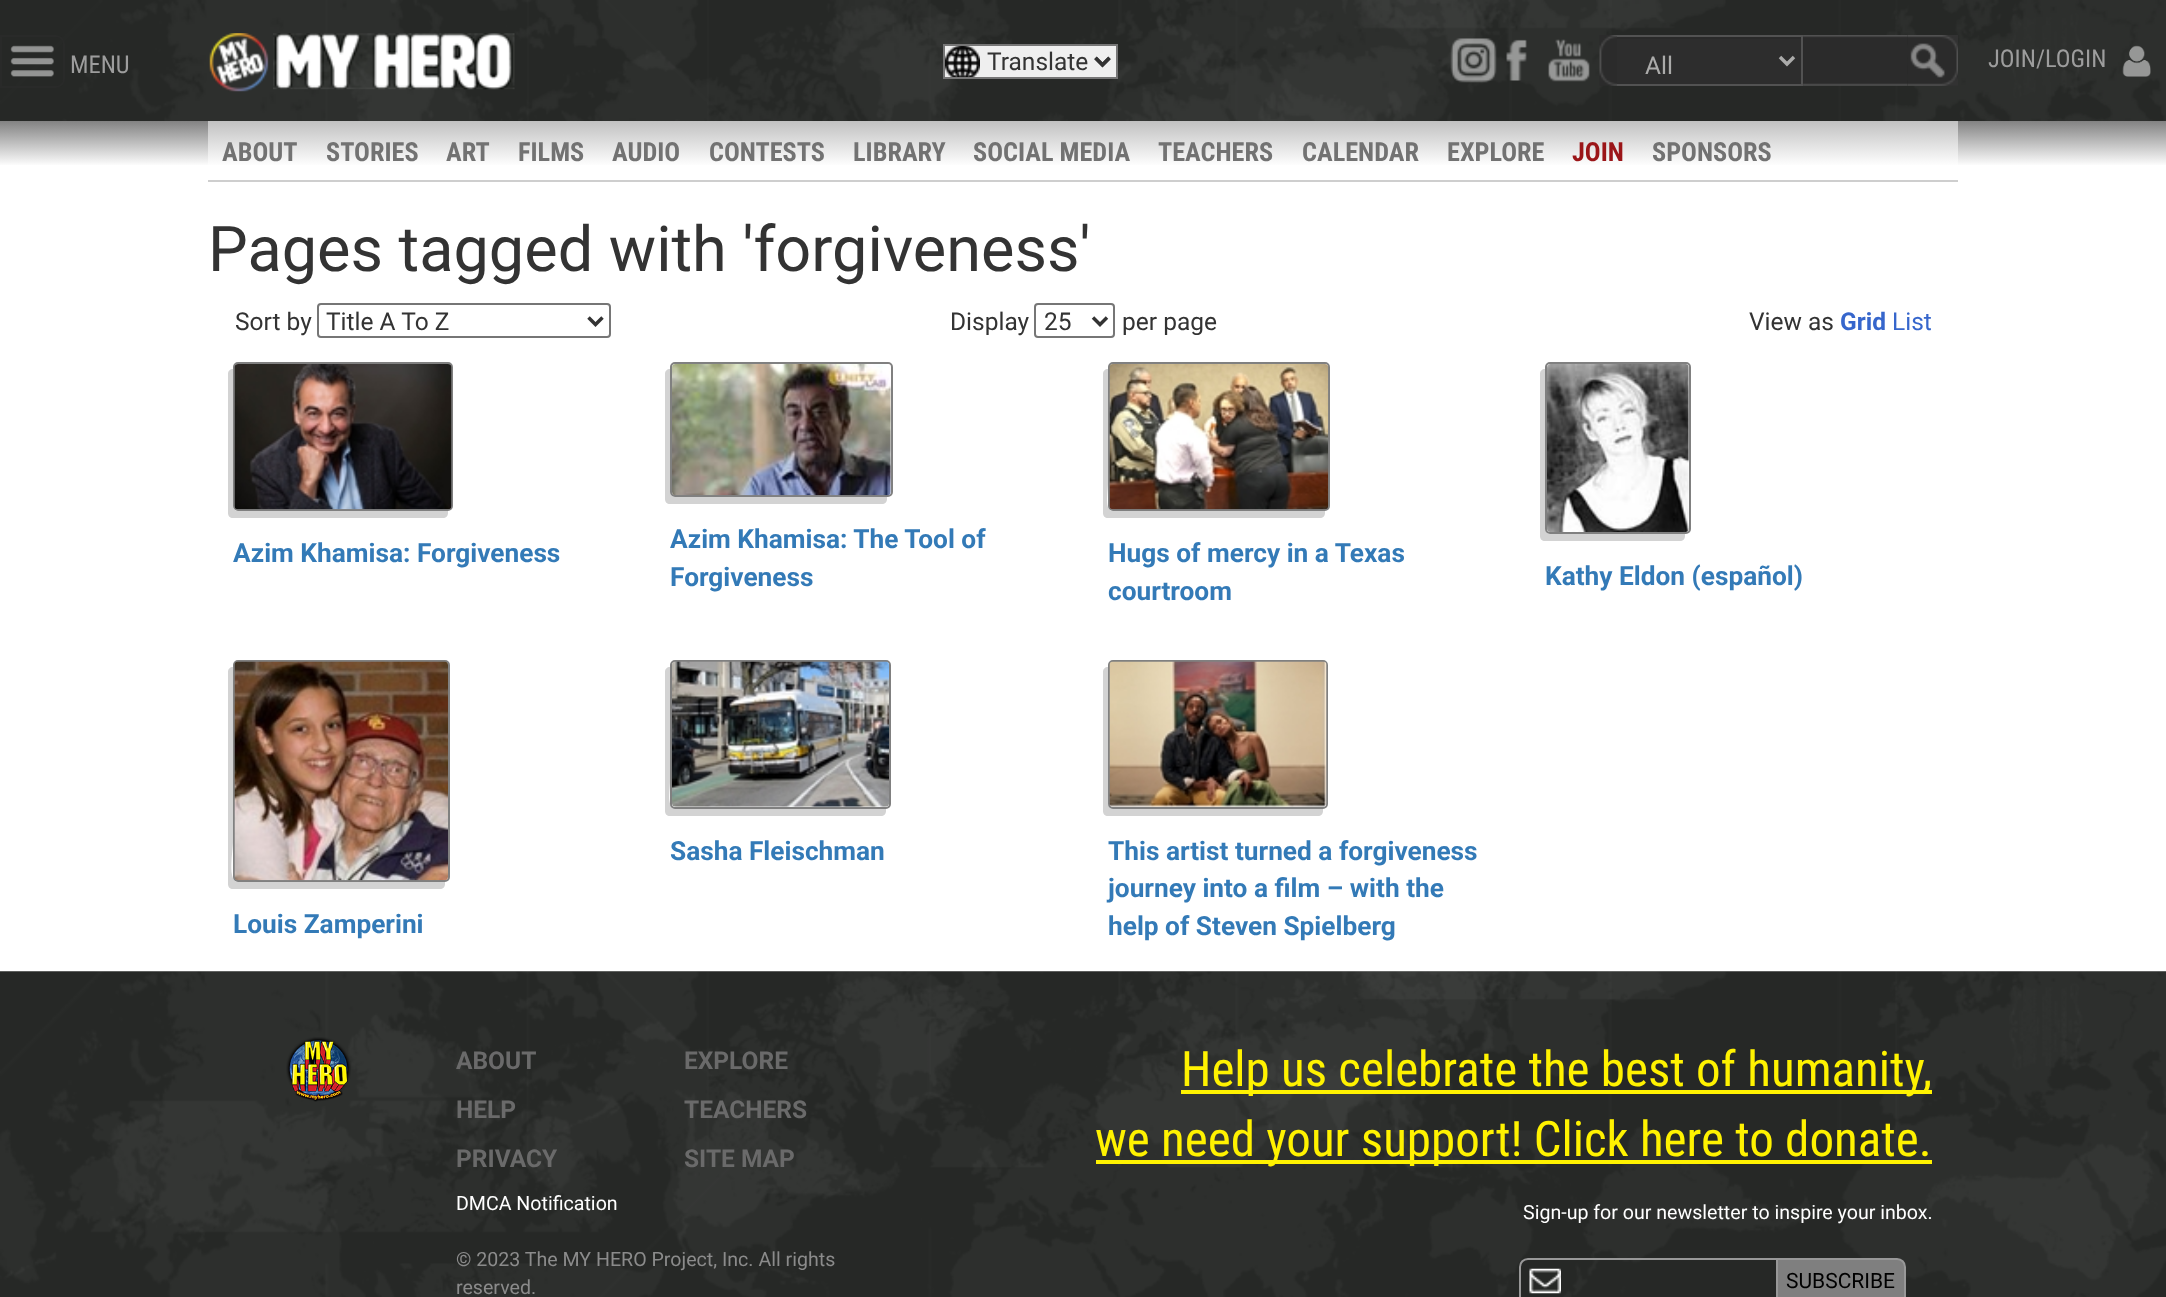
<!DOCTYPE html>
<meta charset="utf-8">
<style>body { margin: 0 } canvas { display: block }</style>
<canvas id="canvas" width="2166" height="1297"></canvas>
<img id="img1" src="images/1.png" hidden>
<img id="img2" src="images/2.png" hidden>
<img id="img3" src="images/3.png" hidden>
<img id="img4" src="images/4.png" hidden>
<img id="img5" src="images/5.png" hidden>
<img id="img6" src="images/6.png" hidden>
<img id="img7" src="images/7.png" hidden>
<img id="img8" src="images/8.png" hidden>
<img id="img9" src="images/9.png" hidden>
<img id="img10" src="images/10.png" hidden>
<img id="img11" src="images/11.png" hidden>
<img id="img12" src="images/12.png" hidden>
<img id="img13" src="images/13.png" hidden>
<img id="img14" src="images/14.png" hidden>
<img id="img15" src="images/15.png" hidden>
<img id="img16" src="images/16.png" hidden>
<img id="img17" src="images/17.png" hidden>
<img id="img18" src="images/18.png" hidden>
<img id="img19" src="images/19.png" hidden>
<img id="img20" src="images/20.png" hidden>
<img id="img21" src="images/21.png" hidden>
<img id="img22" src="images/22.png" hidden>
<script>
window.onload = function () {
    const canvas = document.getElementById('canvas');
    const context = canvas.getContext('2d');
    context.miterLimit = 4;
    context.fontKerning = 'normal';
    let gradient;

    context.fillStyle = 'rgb(255, 255, 255)';
    context.fillRect(0, 0, 2166, 1297);
    context.drawImage(document.getElementById('img1'), 0, 0, 2166, 121);
    context.beginPath();
    context.roundRect(1, 36, 63, 51, [0, 8, 8, 0]);
    context.strokeStyle = 'rgb(41, 42, 41)';
    context.lineWidth = 2;
    context.stroke();
    context.drawImage(document.getElementById('img2'), 10, 45, 44, 32);
    context.drawImage(document.getElementById('img3'), 209, 33, 60, 59);
    context.drawImage(document.getElementById('img4'), 273, 33, 242, 57);
    context.fillStyle = 'rgb(239, 239, 239)';
    context.fillRect(945, 46, 171, 31);
    context.drawImage(document.getElementById('img5'), 945, 46, 166, 31);
    context.strokeStyle = 'rgb(118, 118, 118)';
    context.strokeRect(944, 45, 173, 33);
    context.beginPath();
    context.moveTo(1095.5, 58);
    context.lineTo(1102.5, 65);
    context.lineTo(1109.5, 58);
    context.strokeStyle = 'rgb(51, 51, 51)';
    context.lineWidth = 3.5;
    context.stroke();
    context.drawImage(document.getElementById('img6'), 1450, 38, 47, 45);
    context.drawImage(document.getElementById('img7'), 1506, 39, 21, 42);
    context.drawImage(document.getElementById('img8'), 1548, 39, 42, 43);
    context.drawImage(document.getElementById('img9'), 1599, 35, 18, 51);
    context.fillStyle = 'rgb(45, 45, 45)';
    context.fillRect(1617, 39, 184, 45);
    context.fillStyle = 'rgb(42, 42, 42)';
    context.fillRect(1617, 37, 184, 2);
    context.fillStyle = 'rgb(82, 82, 82)';
    context.fillRect(1617, 35, 186, 2);
    context.fillRect(1801, 35, 2, 51);
    context.fillRect(1617, 84, 186, 2);
    context.beginPath();
    context.moveTo(1780, 57);
    context.lineTo(1787, 64);
    context.lineTo(1794, 57);
    context.strokeStyle = 'rgb(171, 171, 170)';
    context.stroke();
    context.drawImage(document.getElementById('img10'), 1803, 35, 105, 51);
    context.drawImage(document.getElementById('img11'), 1907, 35, 51, 51);
    context.drawImage(document.getElementById('img12'), 2122, 45, 29, 32);
    gradient = context.createLinearGradient(1083, 121, 1083, 182);
    gradient.addColorStop(0, 'rgb(130, 130, 130)');
    gradient.addColorStop(0.74, 'rgb(255, 255, 255)');
    context.fillStyle = gradient;
    context.fillRect(0, 121, 2166, 44);
    gradient = context.createLinearGradient(1083, 121, 1083, 182);
    gradient.addColorStop(0, 'rgb(193, 193, 193)');
    gradient.addColorStop(0.74, 'rgb(255, 255, 255)');
    context.fillStyle = gradient;
    context.fillRect(208, 121, 1750, 44);
    context.fillStyle = 'rgb(206, 206, 206)';
    context.fillRect(208, 180, 1750, 2);
    context.beginPath();
    context.roundRect(318, 304, 292, 33, 3);
    context.strokeStyle = 'rgb(118, 118, 118)';
    context.lineWidth = 2;
    context.stroke();
    context.beginPath();
    context.moveTo(588.5, 317.5);
    context.lineTo(595.5, 324.5);
    context.lineTo(602.5, 317.5);
    context.strokeStyle = 'rgb(51, 51, 51)';
    context.lineWidth = 3.5;
    context.stroke();
    context.beginPath();
    context.roundRect(1035, 304, 79, 33, 3);
    context.strokeStyle = 'rgb(118, 118, 118)';
    context.lineWidth = 2;
    context.stroke();
    context.beginPath();
    context.moveTo(1093, 317.5);
    context.lineTo(1100, 324.5);
    context.lineTo(1107, 317.5);
    context.strokeStyle = 'rgb(51, 51, 51)';
    context.lineWidth = 3.5;
    context.stroke();
    context.fillStyle = 'rgb(211, 211, 211)';
    context.beginPath();
    context.moveTo(233, 369);
    context.bezierCurveTo(230, 369, 228, 371, 228, 374);
    context.lineTo(228, 513);
    context.bezierCurveTo(228, 516, 230, 518, 233, 518);
    context.lineTo(443, 518);
    context.bezierCurveTo(446, 518, 448, 516, 448, 513);
    context.lineTo(448, 511);
    context.lineTo(238, 511);
    context.bezierCurveTo(235, 511, 233, 509, 233, 506);
    context.closePath();
    context.fill();
    context.beginPath();
    context.roundRect(234, 363, 218, 147, 4);
    context.strokeStyle = 'rgb(128, 128, 128)';
    context.lineWidth = 2;
    context.stroke();
    context.drawImage(document.getElementById('img13'), 234, 364, 218, 146);
    context.beginPath();
    context.moveTo(670, 369);
    context.bezierCurveTo(667, 369, 665, 371, 665, 374);
    context.lineTo(665, 499);
    context.bezierCurveTo(665, 502, 667, 504, 670, 504);
    context.lineTo(882, 504);
    context.bezierCurveTo(885, 504, 887, 502, 887, 499);
    context.lineTo(887, 497);
    context.lineTo(676, 497);
    context.bezierCurveTo(673, 497, 670, 495, 670, 492);
    context.closePath();
    context.fill();
    context.beginPath();
    context.roundRect(671, 363, 221, 133, 4);
    context.stroke();
    context.drawImage(document.getElementById('img14'), 672, 364, 219, 132);
    context.beginPath();
    context.moveTo(1108, 369);
    context.bezierCurveTo(1105, 369, 1103, 371, 1103, 374);
    context.lineTo(1103, 513);
    context.bezierCurveTo(1103, 516, 1105, 518, 1108, 518);
    context.lineTo(1320, 518);
    context.bezierCurveTo(1323, 518, 1325, 516, 1325, 513);
    context.lineTo(1325, 511);
    context.lineTo(1113, 511);
    context.bezierCurveTo(1104, 511, 1108, 493, 1108, 483);
    context.closePath();
    context.fill();
    context.beginPath();
    context.roundRect(1109, 363, 220, 147, 4);
    context.stroke();
    context.drawImage(document.getElementById('img15'), 1109, 364, 220, 146);
    context.beginPath();
    context.moveTo(1545, 369);
    context.bezierCurveTo(1542, 369, 1540, 371, 1540, 374);
    context.lineTo(1540, 536);
    context.bezierCurveTo(1540, 539, 1542, 541, 1545, 541);
    context.lineTo(1680, 541);
    context.bezierCurveTo(1683, 541, 1685, 539, 1685, 536);
    context.lineTo(1685, 534);
    context.lineTo(1550, 534);
    context.bezierCurveTo(1548, 534, 1545, 531, 1545, 528);
    context.closePath();
    context.fill();
    context.beginPath();
    context.roundRect(1546, 363, 144, 170, 4);
    context.stroke();
    context.drawImage(document.getElementById('img16'), 1547, 364, 142, 168);
    context.beginPath();
    context.moveTo(233, 667);
    context.bezierCurveTo(230, 667, 228, 669, 228, 672);
    context.lineTo(228, 884);
    context.bezierCurveTo(228, 887, 230, 889, 233, 889);
    context.lineTo(440, 889);
    context.bezierCurveTo(443, 889, 445, 887, 445, 884);
    context.lineTo(445, 882);
    context.lineTo(238, 882);
    context.bezierCurveTo(227, 882, 233, 851, 233, 842);
    context.closePath();
    context.fill();
    context.beginPath();
    context.roundRect(234, 661, 215, 220, 4);
    context.stroke();
    context.drawImage(document.getElementById('img17'), 234, 661, 214, 220);
    context.beginPath();
    context.moveTo(670, 667);
    context.bezierCurveTo(667, 667, 665, 669, 665, 672);
    context.lineTo(665, 811);
    context.bezierCurveTo(665, 814, 667, 816, 670, 816);
    context.lineTo(881, 816);
    context.bezierCurveTo(884, 816, 886, 814, 886, 811);
    context.lineTo(886, 808);
    context.lineTo(676, 808);
    context.bezierCurveTo(666, 808, 670, 791, 670, 781);
    context.closePath();
    context.fill();
    context.beginPath();
    context.roundRect(671, 661, 219, 147, 4);
    context.stroke();
    context.drawImage(document.getElementById('img18'), 672, 661, 217, 146);
    context.beginPath();
    context.moveTo(1108, 667);
    context.bezierCurveTo(1105, 667, 1103, 669, 1103, 672);
    context.lineTo(1103, 811);
    context.bezierCurveTo(1103, 814, 1105, 816, 1108, 816);
    context.lineTo(1318, 816);
    context.bezierCurveTo(1321, 816, 1323, 814, 1323, 811);
    context.lineTo(1323, 808);
    context.lineTo(1113, 808);
    context.bezierCurveTo(1110, 808, 1108, 806, 1108, 803);
    context.closePath();
    context.fill();
    context.beginPath();
    context.roundRect(1109, 661, 218, 147, 4);
    context.stroke();
    context.drawImage(document.getElementById('img19'), 1109, 661, 218, 146);
    context.drawImage(document.getElementById('img20'), 0, 971, 2166, 326);
    context.drawImage(document.getElementById('img21'), 286, 1037, 65, 65);
    context.fillStyle = 'rgb(255, 242, 0)';
    context.fillRect(1181, 1090, 751, 4);
    context.fillRect(1096, 1160, 836, 4);
    context.drawImage(document.getElementById('img22'), 1529, 1268, 32, 26);
    context.beginPath();
    context.moveTo(1528, 1259);
    context.lineTo(1781, 1259);
    context.lineTo(1781, 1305);
    context.lineTo(1528, 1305);
    context.bezierCurveTo(1523.5, 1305, 1520, 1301.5, 1520, 1297);
    context.lineTo(1520, 1267);
    context.bezierCurveTo(1520, 1262.5, 1523.5, 1259, 1528, 1259);
    context.closePath();
    context.strokeStyle = 'rgb(152, 152, 152)';
    context.stroke();
    context.fillStyle = 'rgb(127, 127, 127)';
    context.beginPath();
    context.moveTo(1777, 1259);
    context.lineTo(1897, 1259);
    context.bezierCurveTo(1901.5, 1259, 1905, 1262.5, 1905, 1267);
    context.lineTo(1905, 1297);
    context.bezierCurveTo(1905, 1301.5, 1901.5, 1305, 1897, 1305);
    context.lineTo(1777, 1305);
    context.closePath();
    context.fill();
    context.stroke();
    context.font = '24.5px Roboto Condensed';
    context.fillStyle = 'rgb(157, 157, 157)';
    context.fillText('MENU', 70, 73);
    context.font = '24.5px Roboto';
    context.fillStyle = 'rgb(51, 51, 51)';
    context.fillText('Translate', 987, 70);
    context.fillStyle = 'rgb(171, 171, 170)';
    context.fillText('All', 1645, 74);
    context.font = '24.5px Roboto Condensed';
    context.fillStyle = 'rgb(157, 157, 157)';
    context.fillText('JOIN/LOGIN', 1988, 67);
    context.font = 'bold 26.25px Roboto Condensed';
    context.fillStyle = 'rgb(114, 114, 114)';
    context.fillText('ABOUT', 222, 161);
    context.fillText('STORIES', 326, 161);
    context.fillText('ART', 446, 161);
    context.fillText('FILMS', 518, 161);
    context.fillText('AUDIO', 612, 161);
    context.fillText('CONTESTS', 709, 161);
    context.fillText('LIBRARY', 853, 161);
    context.fillText('SOCIAL MEDIA', 973, 161);
    context.fillText('TEACHERS', 1158, 161);
    context.fillText('CALENDAR', 1302, 161);
    context.fillText('EXPLORE', 1447, 161);
    context.fillStyle = 'rgb(155, 21, 24)';
    context.fillText('JOIN', 1572, 161);
    context.fillStyle = 'rgb(114, 114, 114)';
    context.fillText('SPONSORS', 1652, 161);
    context.font = '63px Roboto';
    context.fillStyle = 'rgb(51, 51, 51)';
    context.fillText('Pages tagged with \'forgiveness\'', 208, 271);
    context.font = '24.5px Roboto';
    context.fillText('Sort by', 235, 330);
    context.fillText('Title A To Z', 326, 330);
    context.fillText('Display', 950, 330);
    context.fillText('25', 1044, 330);
    context.fillText('per page', 1122, 330);
    context.fillText('View as', 1749, 330);
    context.font = 'bold 24.5px Roboto';
    context.fillStyle = 'rgb(54, 102, 204)';
    context.fillText('Grid', 1840, 330);
    context.font = '24.5px Roboto';
    context.fillText('List', 1892, 330);
    context.font = 'bold 26.25px Roboto';
    context.fillStyle = 'rgb(51, 122, 183)';
    context.fillText('Azim Khamisa: Forgiveness', 233, 562);
    context.fillText('Azim Khamisa: The Tool of', 670, 548);
    context.fillText('Forgiveness', 670, 586);
    context.fillText('Hugs of mercy in a Texas', 1108, 562);
    context.fillText('courtroom', 1108, 600);
    context.fillText('Kathy Eldon (español)', 1545, 585);
    context.fillText('Louis Zamperini', 233, 933);
    context.fillText('Sasha Fleischman', 670, 860);
    context.fillText('This artist turned a forgiveness', 1108, 860);
    context.fillText('journey into a film – with the', 1108, 897);
    context.fillText('help of Steven Spielberg', 1108, 935);
    context.font = 'bold 24.5px Roboto';
    context.fillStyle = 'rgb(106, 106, 106)';
    context.fillText('ABOUT', 456, 1069);
    context.fillText('HELP', 456, 1118);
    context.fillText('PRIVACY', 456, 1167);
    context.fillText('EXPLORE', 684, 1069);
    context.fillText('TEACHERS', 684, 1118);
    context.fillText('SITE MAP', 684, 1167);
    context.font = '19.6px Roboto';
    context.fillStyle = 'rgb(255, 255, 255)';
    context.fillText('DMCA Notification', 456, 1210);
    context.fillStyle = 'rgb(139, 139, 139)';
    context.fillText('© 2023 The MY HERO Project, Inc. All rights', 456, 1266);
    context.fillText('reserved.', 456, 1294);
    context.font = '49px Roboto Condensed';
    context.fillStyle = 'rgb(255, 242, 0)';
    context.fillText('Help us celebrate the best of humanity,', 1181, 1086);
    context.fillText('we need your support! Click here to donate.', 1095, 1156);
    context.font = '19.6px Roboto';
    context.fillStyle = 'rgb(255, 255, 255)';
    context.fillText('Sign-up for our newsletter to inspire your inbox.', 1523, 1219);
    context.font = '21px Roboto';
    context.fillStyle = 'rgb(0, 0, 0)';
    context.fillText('SUBSCRIBE', 1786, 1288);
};
</script>
